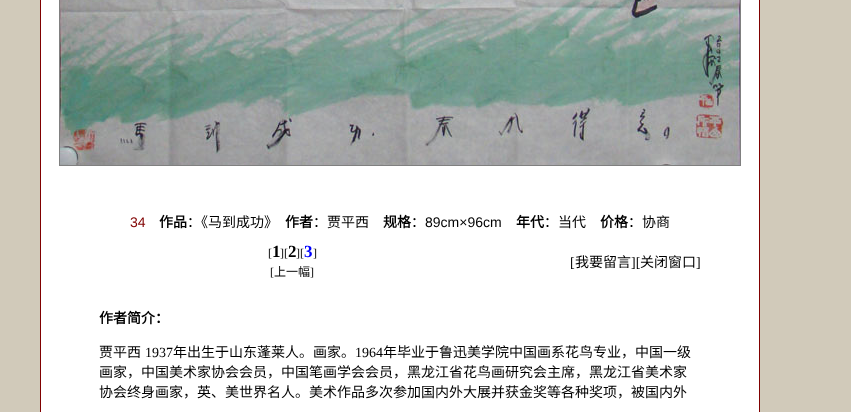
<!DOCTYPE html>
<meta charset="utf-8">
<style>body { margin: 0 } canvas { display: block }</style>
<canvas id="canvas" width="851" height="412"></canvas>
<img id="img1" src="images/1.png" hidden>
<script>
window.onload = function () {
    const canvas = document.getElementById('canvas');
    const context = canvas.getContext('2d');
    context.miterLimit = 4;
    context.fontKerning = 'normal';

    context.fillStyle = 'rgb(209, 202, 186)';
    context.fillRect(0, 0, 851, 412);
    context.fillStyle = 'rgb(255, 255, 255)';
    context.fillRect(41, 0, 718, 412);
    context.fillStyle = 'rgb(128, 0, 0)';
    context.fillRect(759, 0, 1, 412);
    context.fillRect(40, 0, 1, 412);
    context.strokeStyle = 'rgb(128, 128, 128)';
    context.strokeRect(59.5, -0.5, 681, 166);
    context.drawImage(document.getElementById('img1'), 60, 0, 680, 165);
    context.font = '14px Liberation Sans';
    context.fillText('34', 130, 227);
    context.font = 'bold 14px Noto Sans CJK SC';
    context.fillStyle = 'rgb(0, 0, 0)';
    context.fillText('作品', 159, 227);
    context.font = '14px Noto Sans CJK SC';
    context.fillText('：《马到成功》', 187, 227);
    context.font = 'bold 14px Noto Sans CJK SC';
    context.fillText('作者', 285, 227);
    context.font = '14px Noto Sans CJK SC';
    context.fillText('：贾平西', 313, 227);
    context.font = 'bold 14px Noto Sans CJK SC';
    context.fillText('规格', 383, 227);
    context.font = '14px Noto Sans CJK SC';
    context.fillText('：', 411, 227);
    context.font = '14px Liberation Sans';
    context.fillText('89cm×96cm', 425, 227);
    context.font = 'bold 14px Noto Sans CJK SC';
    context.fillText('年代', 516, 227);
    context.font = '14px Noto Sans CJK SC';
    context.fillText('：当代', 544, 227);
    context.font = 'bold 14px Noto Sans CJK SC';
    context.fillText('价格', 600, 227);
    context.font = '14px Noto Sans CJK SC';
    context.fillText('：协商', 628, 227);
    context.font = '12px Liberation Serif';
    context.fillText('[', 268, 257);
    context.font = 'bold 17px Liberation Serif';
    context.fillText('1', 272, 257);
    context.font = '12px Liberation Serif';
    context.fillText('][', 280, 257);
    context.font = 'bold 17px Liberation Serif';
    context.fillText('2', 288, 257);
    context.font = '12px Liberation Serif';
    context.fillText('][', 296, 257);
    context.font = 'bold 17px Liberation Serif';
    context.fillStyle = 'rgb(0, 0, 255)';
    context.fillText('3', 304, 257);
    context.font = '12px Liberation Serif';
    context.fillStyle = 'rgb(0, 0, 0)';
    context.fillText(']', 313, 257);
    context.fillText('[', 270, 276);
    context.font = '12px Noto Sans CJK SC';
    context.fillText('上一幅', 274, 276);
    context.font = '12px Liberation Serif';
    context.fillText(']', 310, 276);
    context.font = '14px Liberation Serif';
    context.fillText('[', 570, 267);
    context.font = '14px Noto Sans CJK SC';
    context.fillText('我要留言', 575, 267);
    context.font = '14px Liberation Serif';
    context.fillText('][', 631, 267);
    context.font = '14px Noto Sans CJK SC';
    context.fillText('关闭窗口', 640, 267);
    context.font = '14px Liberation Serif';
    context.fillText(']', 696, 267);
    context.font = 'bold 14px Noto Sans CJK SC';
    context.fillText('作者简介：', 99, 323);
    context.font = '14px Noto Sans CJK SC';
    context.fillText('贾平西', 99, 357);
    context.font = '14px Liberation Serif';
    context.fillText('1937', 145, 357);
    context.font = '14px Noto Sans CJK SC';
    context.fillText('年出生于山东蓬莱人。画家。', 173, 357);
    context.font = '14px Liberation Serif';
    context.fillText('1964', 355, 357);
    context.font = '14px Noto Sans CJK SC';
    context.fillText('年毕业于鲁迅美学院中国画系花鸟专业，中国一级', 383, 357);
    context.fillText('画家，中国美术家协会会员，中国笔画学会会员，黑龙江省花鸟画研究会主席，黑龙江省美术家', 99, 377);
    context.fillText('协会终身画家，英、美世界名人。美术作品多次参加国内外大展并获金奖等各种奖项，被国内外', 99, 397);
};
</script>
